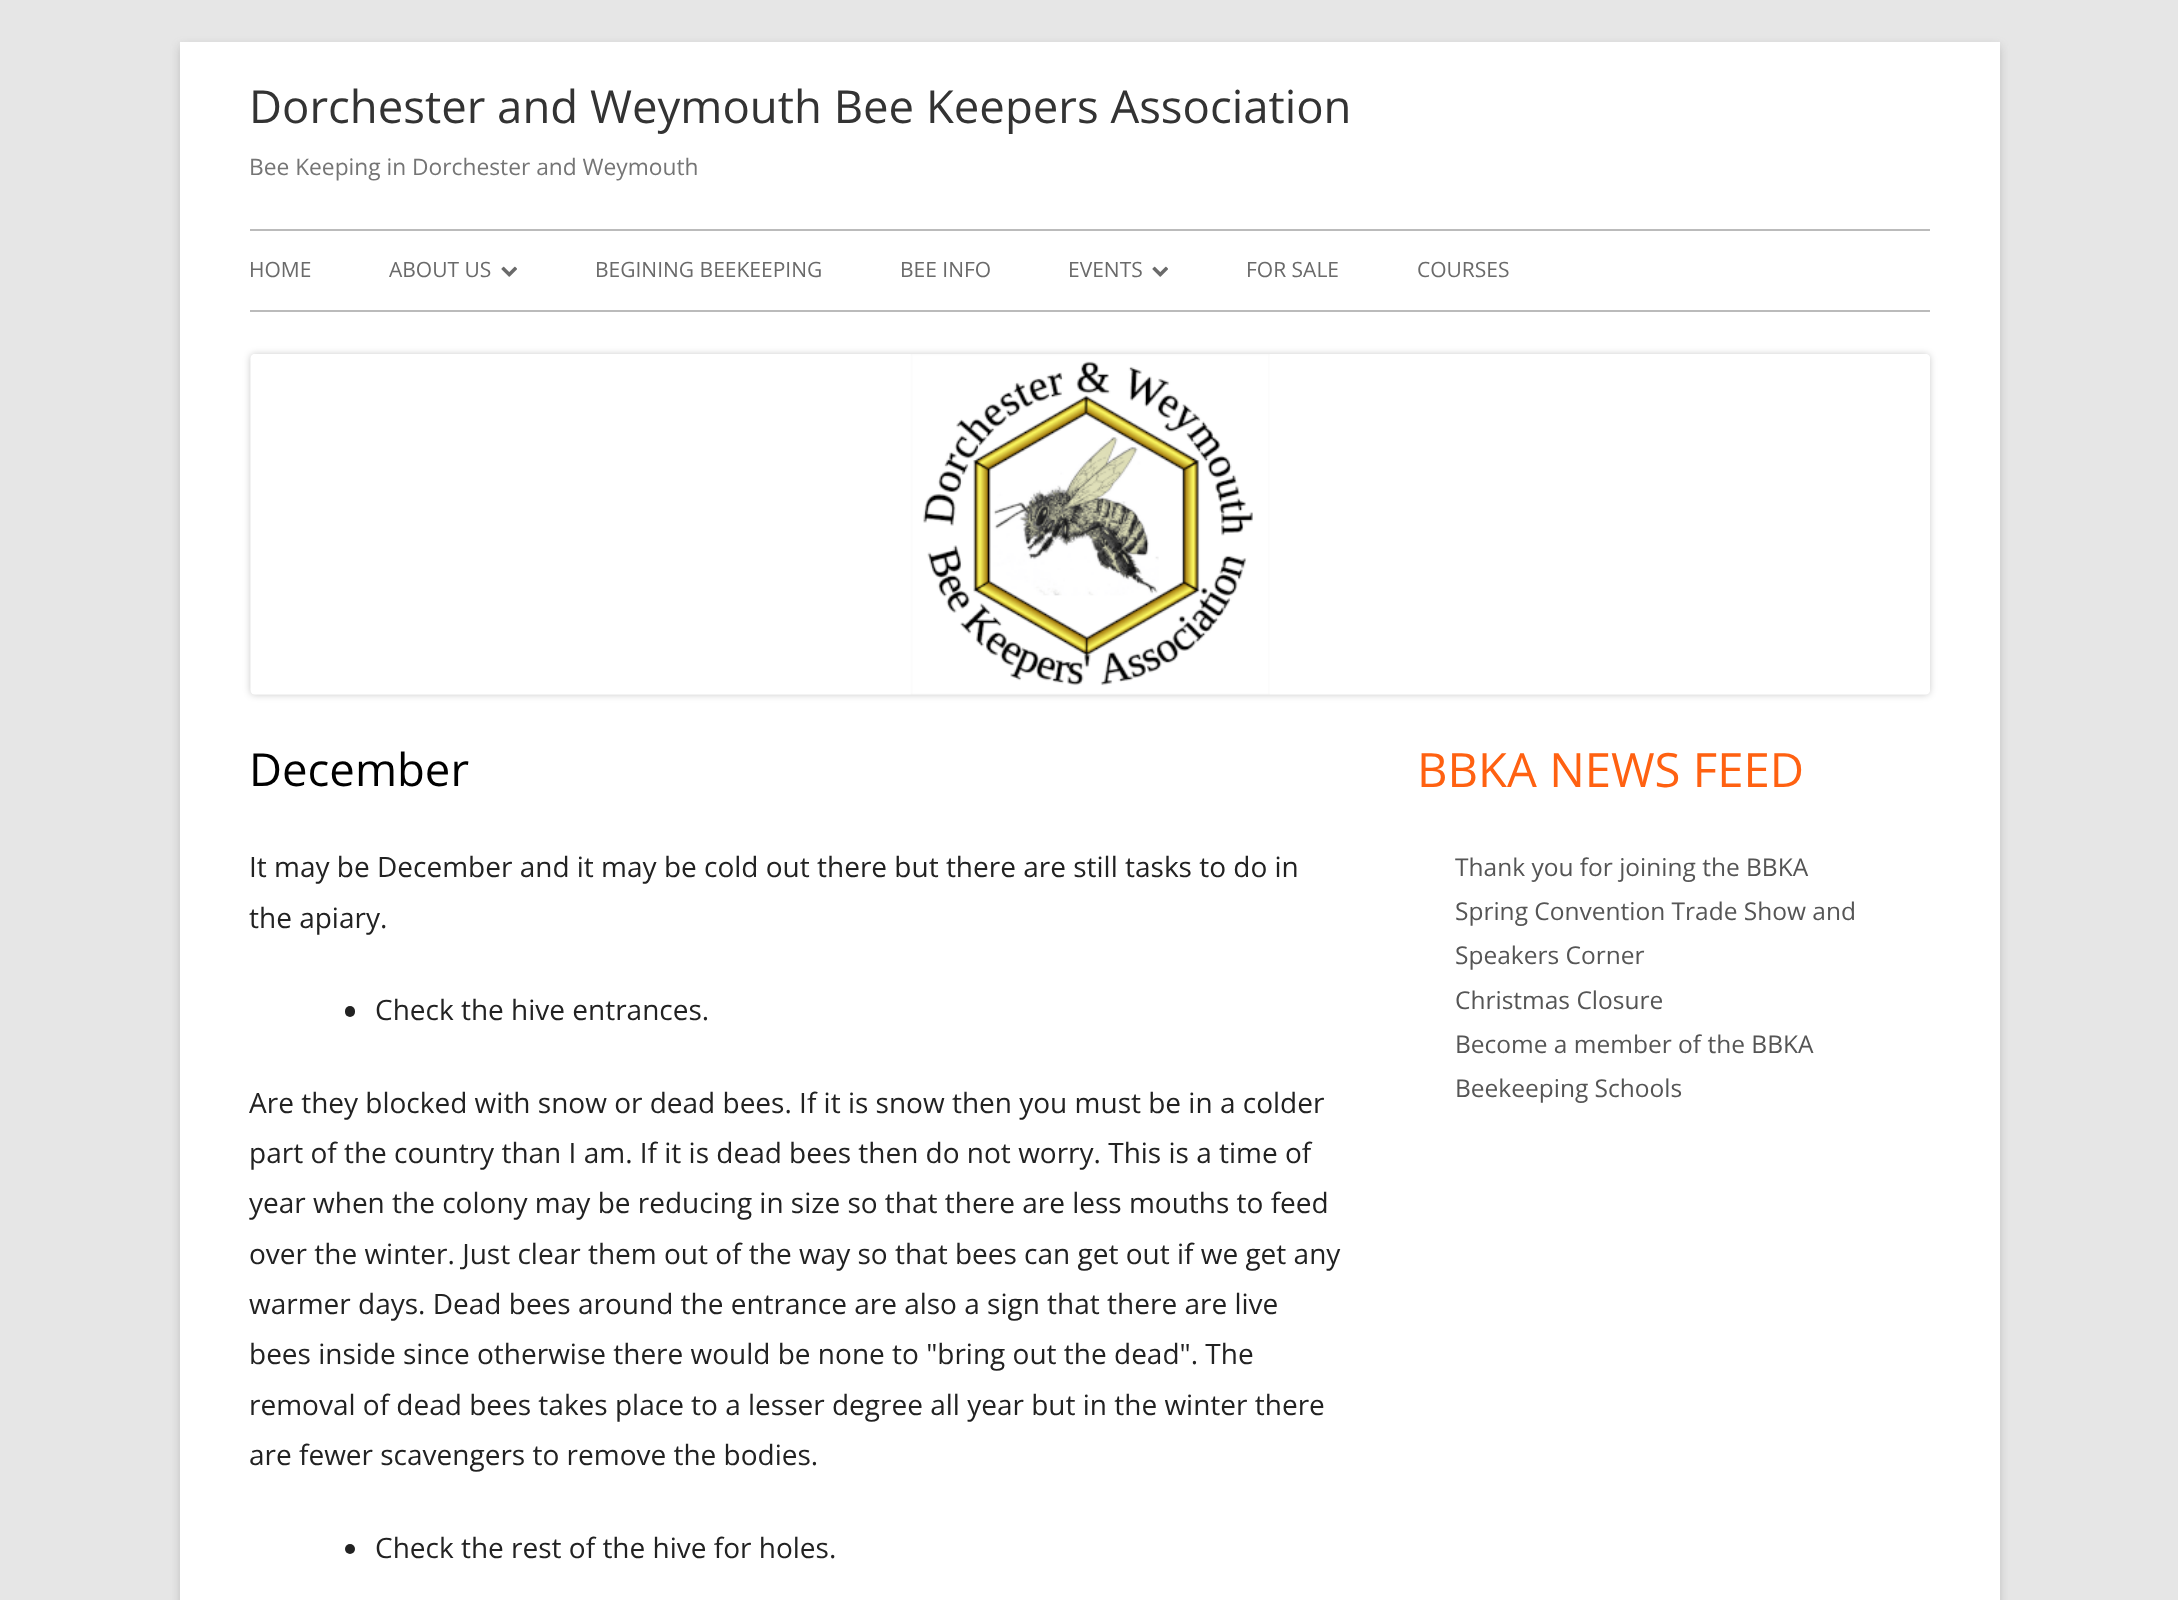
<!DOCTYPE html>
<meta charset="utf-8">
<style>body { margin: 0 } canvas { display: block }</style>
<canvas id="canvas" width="2178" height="1600"></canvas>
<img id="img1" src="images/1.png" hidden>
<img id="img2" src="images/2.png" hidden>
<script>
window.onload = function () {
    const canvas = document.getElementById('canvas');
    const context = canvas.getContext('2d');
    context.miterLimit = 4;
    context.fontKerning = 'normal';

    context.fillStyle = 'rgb(230, 230, 230)';
    context.fillRect(0, 0, 2178, 1600);
    context.fillStyle = 'rgba(100, 100, 100, 0.3)';
    context.filter = 'blur(5px)';
    context.beginPath();
    context.rect(180, 46, 1820, 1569);
    context.fill();
    context.filter = 'none';
    context.fillStyle = 'rgb(255, 255, 255)';
    context.fillRect(180, 42, 1820, 1558);
    context.fillStyle = 'rgb(187, 187, 187)';
    context.fillRect(250, 229, 1680, 2);
    context.fillRect(250, 310, 1680, 2);
    context.drawImage(document.getElementById('img1'), 501, 266, 16, 11);
    context.drawImage(document.getElementById('img1'), 1152, 266, 16, 11);
    context.fillStyle = 'rgba(0, 0, 0, 0.2)';
    context.filter = 'blur(3.5px)';
    context.beginPath();
    context.roundRect(250, 354, 1680, 341, 5);
    context.fill();
    context.filter = 'none';
    context.drawImage(document.getElementById('img2'), 250, 354, 1680, 341);
    context.fillStyle = 'rgb(34, 34, 34)';
    context.beginPath();
    context.roundRect(345, 1006, 10, 11, 5);
    context.fill();
    context.beginPath();
    context.arc(350, 1549, 5, 0, 2 * Math.PI);
    context.fill();
    context.font = '45.5px Open Sans';
    context.fillStyle = 'rgb(51, 51, 51)';
    context.fillText('Dorchester and Weymouth Bee Keepers Association', 249, 123);
    context.font = '22.75px Open Sans';
    context.fillStyle = 'rgb(117, 117, 117)';
    context.fillText('Bee Keeping in Dorchester and Weymouth', 249, 175);
    context.font = '21px Open Sans';
    context.fillStyle = 'rgb(106, 106, 106)';
    context.fillText('HOME', 249, 277);
    context.fillText('ABOUT US', 389, 277);
    context.fillText('BEGINING BEEKEEPING', 595, 277);
    context.fillText('BEE INFO', 900, 277);
    context.fillText('EVENTS', 1068, 277);
    context.fillText('FOR SALE', 1246, 277);
    context.fillText('COURSES', 1417, 277);
    context.font = '45.5px Open Sans';
    context.fillStyle = 'rgb(0, 0, 0)';
    context.fillText('December', 249, 786);
    context.font = '28px Open Sans';
    context.fillStyle = 'rgb(34, 34, 34)';
    context.fillText('It may be December and it may be cold out there but there are still tasks to do in', 249, 877);
    context.fillText('the apiary.', 249, 928);
    context.fillText('Check the hive entrances.', 375, 1020);
    context.fillText('Are they blocked with snow or dead bees. If it is snow then you must be in a colder', 249, 1113);
    context.fillText('part of the country than I am. If it is dead bees then do not worry. This is a time of', 249, 1163);
    context.fillText('year when the colony may be reducing in size so that there are less mouths to feed', 249, 1213);
    context.fillText('over the winter. Just clear them out of the way so that bees can get out if we get any', 249, 1264);
    context.fillText('warmer days. Dead bees around the entrance are also a sign that there are live', 249, 1314);
    context.fillText('bees inside since otherwise there would be none to "bring out the dead". The', 249, 1364);
    context.fillText('removal of dead bees takes place to a lesser degree all year but in the winter there', 249, 1415);
    context.fillText('are fewer scavengers to remove the bodies.', 249, 1465);
    context.fillText('Check the rest of the hive for holes.', 375, 1558);
    context.font = '47.25px Open Sans';
    context.fillStyle = 'rgb(255, 97, 17)';
    context.fillText('BBKA NEWS FEED', 1417, 787);
    context.font = '24.5px Open Sans';
    context.fillStyle = 'rgb(85, 85, 85)';
    context.fillText('Thank you for joining the BBKA', 1455, 876);
    context.fillText('Spring Convention Trade Show and', 1455, 920);
    context.fillText('Speakers Corner', 1455, 964);
    context.fillText('Christmas Closure', 1455, 1009);
    context.fillText('Become a member of the BBKA', 1455, 1053);
    context.fillText('Beekeeping Schools', 1455, 1097);
};
</script>
